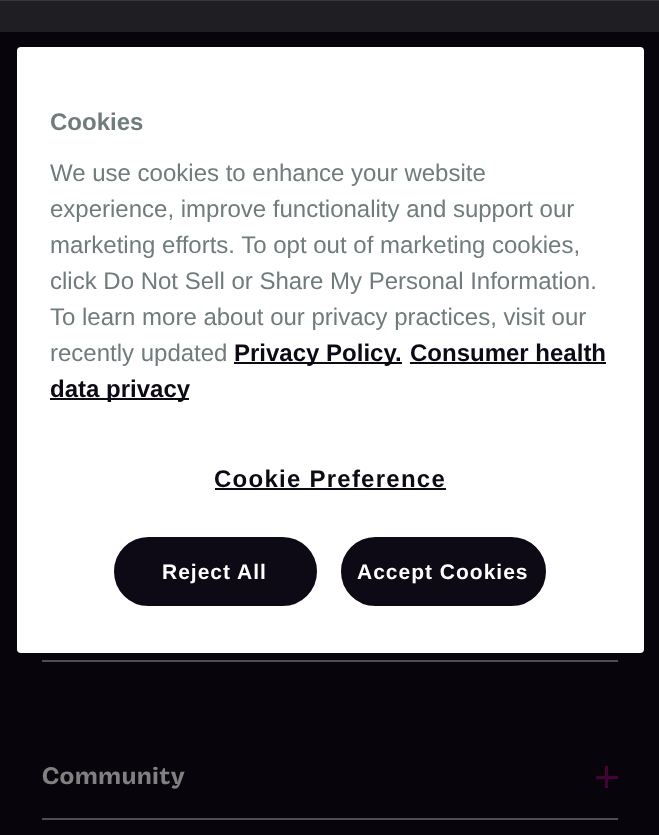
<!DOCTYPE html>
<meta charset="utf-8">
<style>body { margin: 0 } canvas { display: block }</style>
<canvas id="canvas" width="659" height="835"></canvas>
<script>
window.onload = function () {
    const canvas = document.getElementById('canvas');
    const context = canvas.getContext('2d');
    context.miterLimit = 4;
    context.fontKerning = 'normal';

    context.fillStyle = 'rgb(31, 30, 34)';
    context.fillRect(0, 0, 659, 835);
    context.fillStyle = 'rgb(55, 54, 58)';
    context.fillRect(0, 0, 659, 1);
    context.fillStyle = 'rgb(7, 5, 11)';
    context.fillRect(0, 32, 659, 803);
    context.fillStyle = 'rgb(255, 255, 255)';
    context.beginPath();
    context.roundRect(17, 47, 627, 606, 4);
    context.fill();
    context.fillStyle = 'rgb(13, 10, 21)';
    context.fillRect(234, 362, 168, 2);
    context.fillRect(410, 362, 196, 2);
    context.fillRect(50, 398, 139, 2);
    context.fillRect(215, 488, 231, 2);
    context.beginPath();
    context.roundRect(115, 538, 201, 67, 33.5);
    context.fill();
    context.strokeStyle = 'rgb(13, 10, 21)';
    context.lineWidth = 2;
    context.stroke();
    context.beginPath();
    context.roundRect(342, 538, 203, 67, 33.5);
    context.fill();
    context.stroke();
    context.fillStyle = 'rgb(79, 79, 81)';
    context.fillRect(42, 660, 576, 2);
    context.fillRect(42, 818, 576, 2);
    context.fillStyle = 'rgb(69, 2, 55)';
    context.fillRect(605, 766, 3, 22);
    context.fillRect(596, 776, 22, 3);
    context.font = 'bold 24px Liberation Sans';
    context.fillStyle = 'rgb(112, 123, 124)';
    context.fillText('Cookies', 50, 130);
    context.font = '24px Liberation Sans';
    context.fillText('We use cookies to enhance your website', 50, 181);
    context.fillText('experience, improve functionality and support our', 50, 217);
    context.fillText('marketing efforts. To opt out of marketing cookies,', 50, 253);
    context.fillText('click Do Not Sell or Share My Personal Information.', 50, 289);
    context.fillText('To learn more about our privacy practices, visit our', 50, 325);
    context.fillText('recently updated', 50, 361);
    context.font = 'bold 24px Liberation Sans';
    context.fillStyle = 'rgb(13, 10, 21)';
    context.fillText('Privacy Policy.', 234, 361);
    context.fillText('Consumer health', 410, 361);
    context.fillText('data privacy', 50, 397);
    context.letterSpacing = '1.25px';
    context.fillText('Cookie Preference', 214, 487);
    context.letterSpacing = '1px';
    context.font = 'bold 21px Liberation Sans';
    context.fillStyle = 'rgb(255, 255, 255)';
    context.fillText('Reject All', 162, 579);
    context.fillText('Accept Cookies', 357, 579);
    context.letterSpacing = '0.75px';
    context.font = 'bold 24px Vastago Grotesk';
    context.fillStyle = 'rgb(128, 128, 128)';
    context.fillText('Community', 42, 784);
};
</script>
